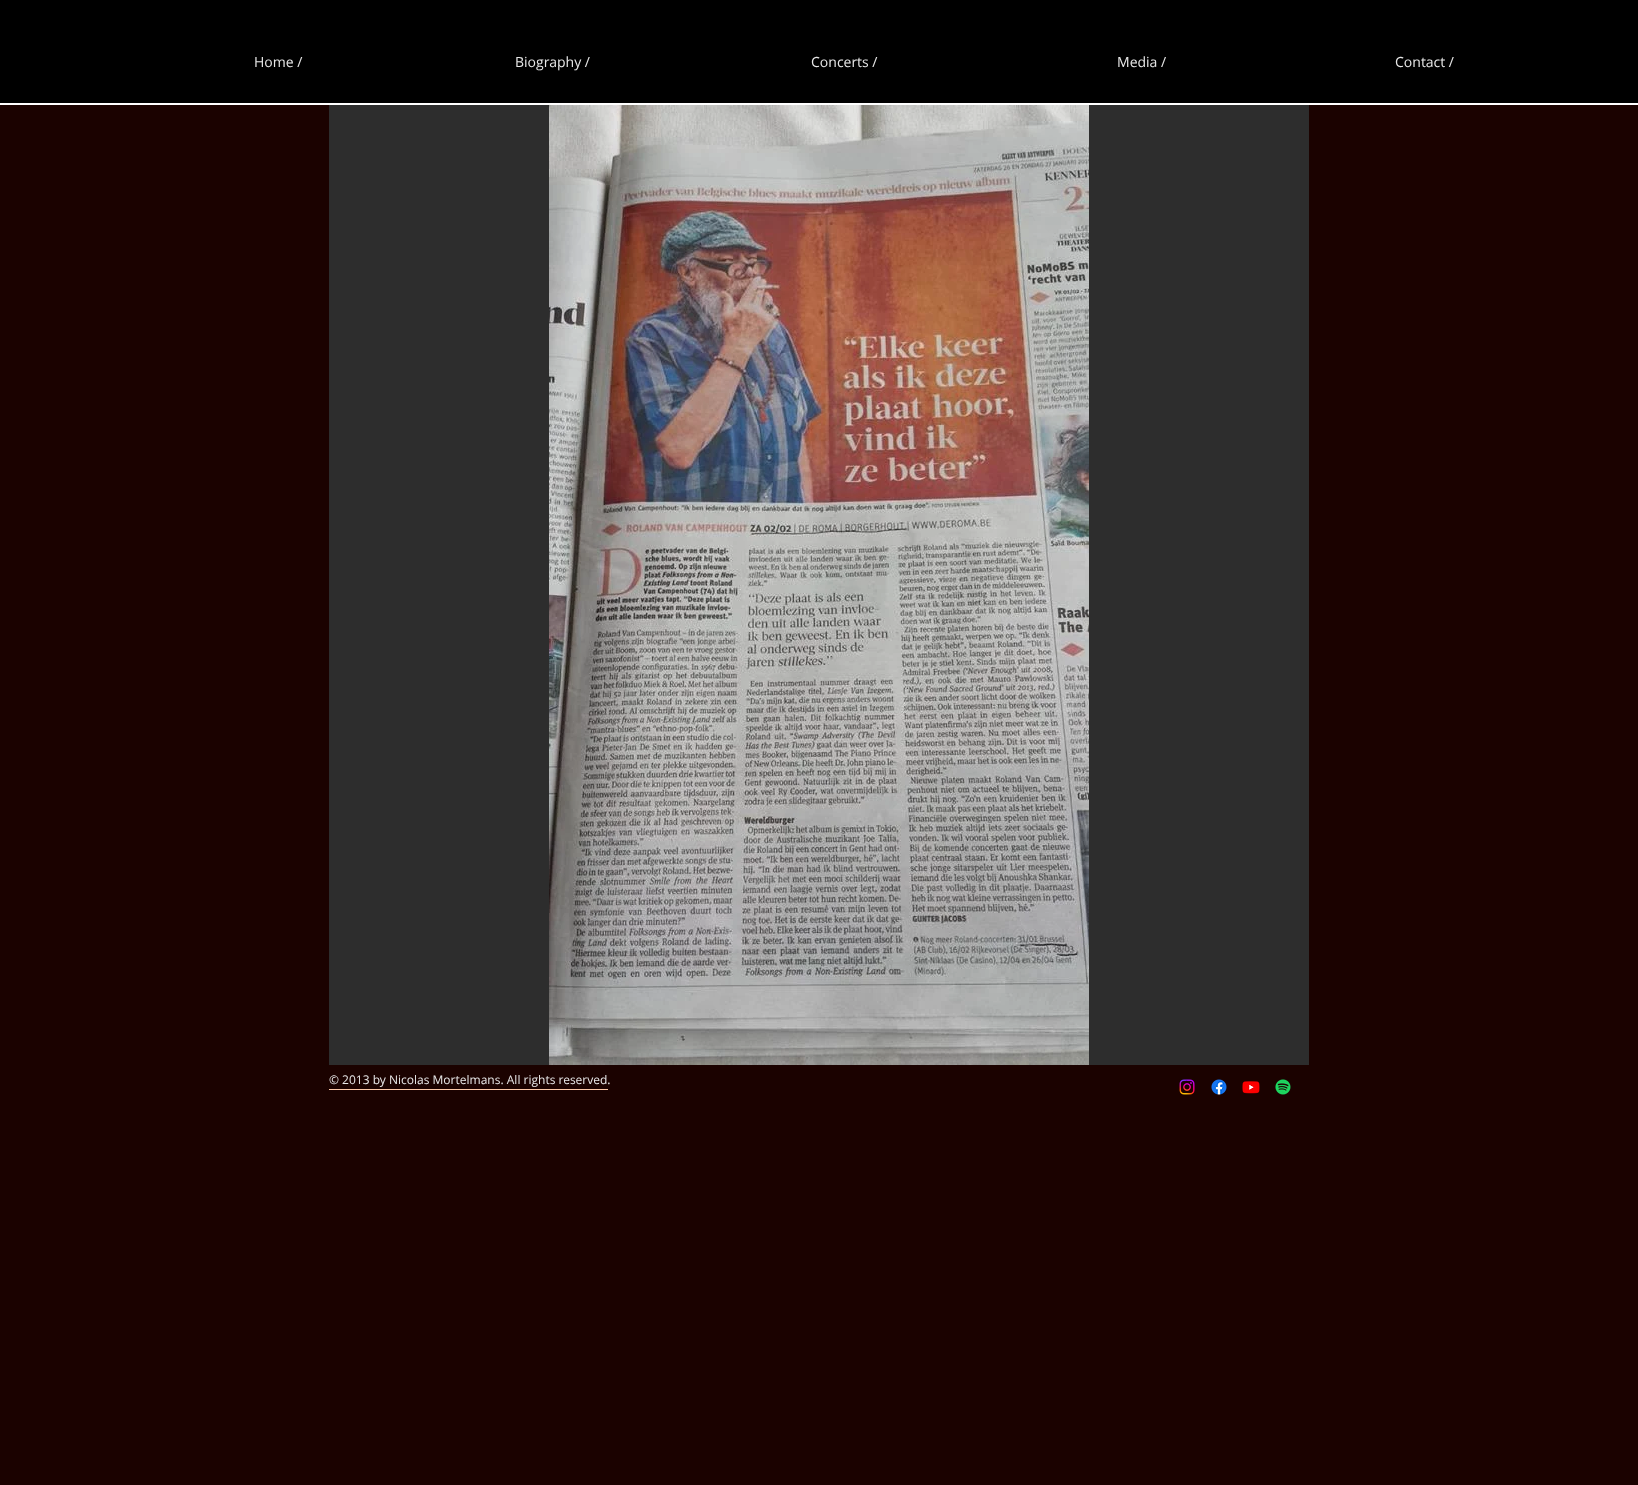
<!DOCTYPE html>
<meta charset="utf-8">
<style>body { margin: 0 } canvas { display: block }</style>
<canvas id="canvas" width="1638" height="1485"></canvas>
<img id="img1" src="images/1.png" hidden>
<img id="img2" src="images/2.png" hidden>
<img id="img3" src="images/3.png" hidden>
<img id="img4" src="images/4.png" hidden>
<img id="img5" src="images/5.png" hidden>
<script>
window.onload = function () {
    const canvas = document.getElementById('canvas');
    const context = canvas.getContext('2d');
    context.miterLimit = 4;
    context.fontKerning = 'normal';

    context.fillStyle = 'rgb(27, 2, 0)';
    context.fillRect(0, 0, 1638, 1485);
    context.fillStyle = 'rgb(0, 0, 0)';
    context.fillRect(0, 0, 1638, 103);
    context.fillStyle = 'rgb(255, 255, 255)';
    context.fillRect(0, 103, 1638, 2);
    context.fillStyle = 'rgb(45, 45, 45)';
    context.fillRect(329, 105, 980, 960);
    context.drawImage(document.getElementById('img1'), 549, 105, 540, 960);
    context.drawImage(document.getElementById('img2'), 1179, 1079, 16, 16);
    context.drawImage(document.getElementById('img3'), 1211, 1079, 16, 16);
    context.drawImage(document.getElementById('img4'), 1242, 1081, 18, 13);
    context.drawImage(document.getElementById('img5'), 1275, 1079, 16, 16);
    context.fillStyle = 'rgb(254, 201, 169)';
    context.fillRect(329, 1089, 279, 1);
    context.font = '14px Open Sans';
    context.fillStyle = 'rgb(232, 232, 232)';
    context.fillText('Home /', 254, 67);
    context.fillText('Biography /', 515, 67);
    context.fillText('Concerts /', 811, 67);
    context.fillText('Media /', 1117, 67);
    context.fillText('Contact /', 1395, 67);
    context.font = '12px Open Sans';
    context.fillText('© 2013 by Nicolas Mortelmans. All rights reserved.', 329, 1084);
};
</script>
